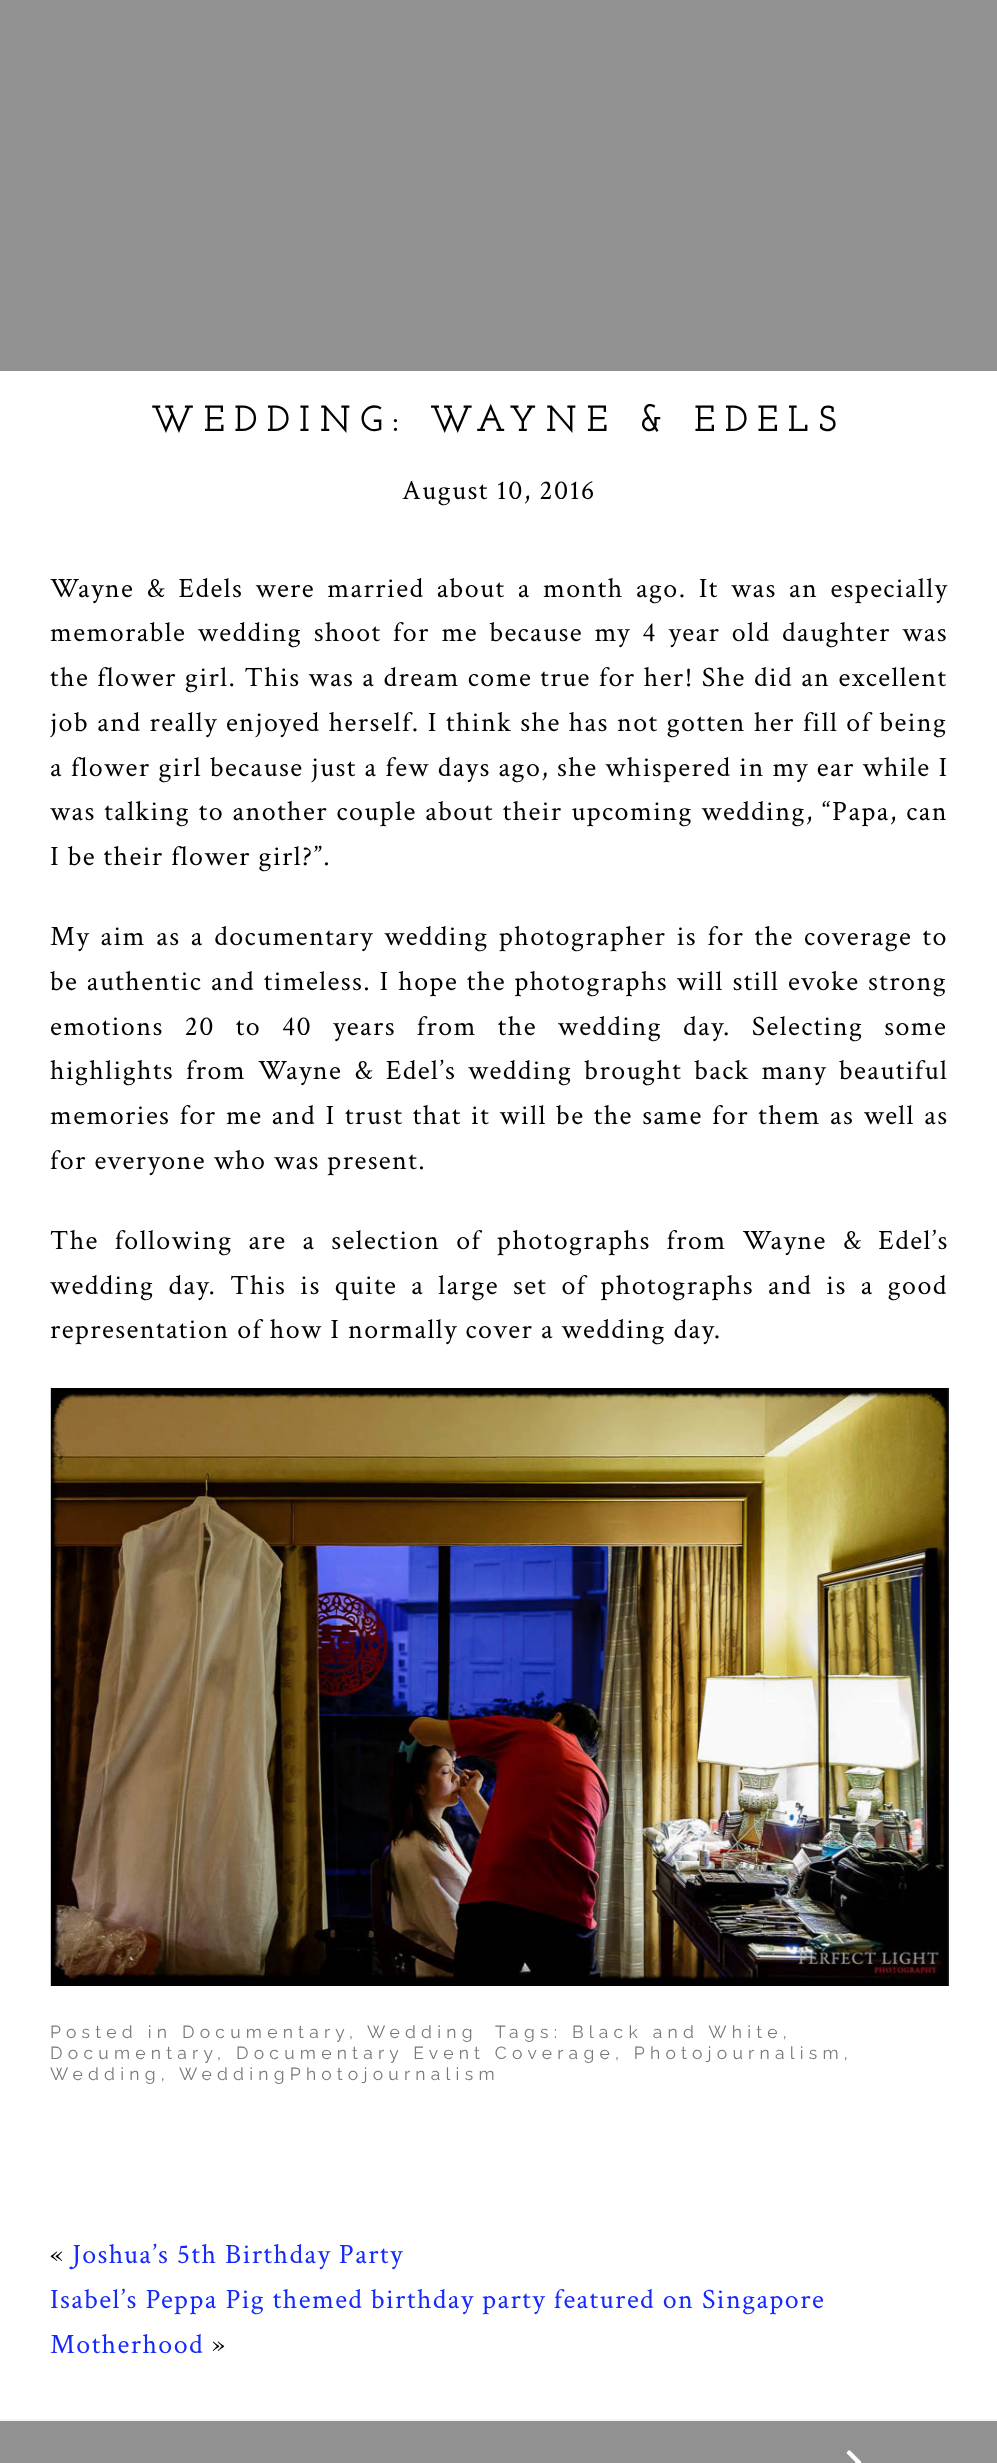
<!DOCTYPE html>
<meta charset="utf-8">
<style>body { margin: 0 } canvas { display: block }</style>
<canvas id="canvas" width="997" height="2463"></canvas>
<img id="img1" src="images/1.png" hidden>
<img id="img2" src="images/2.png" hidden>
<script>
window.onload = function () {
    const canvas = document.getElementById('canvas');
    const context = canvas.getContext('2d');
    context.miterLimit = 4;
    context.fontKerning = 'normal';

    context.fillStyle = 'rgb(255, 255, 255)';
    context.fillRect(0, 0, 997, 2463);
    context.fillStyle = 'rgb(145, 145, 145)';
    context.fillRect(0, 0, 997, 371);
    context.drawImage(document.getElementById('img1'), 50, 1388, 899, 598);
    context.fillRect(0, 2421, 997, 42);
    context.fillStyle = 'rgb(245, 245, 245)';
    context.fillRect(0, 2419, 997, 2);
    context.drawImage(document.getElementById('img2'), 846, 2450, 16, 13);
    context.letterSpacing = '10.5px';
    context.font = 'bold 35px Josefin Slab';
    context.fillStyle = 'rgb(0, 0, 0)';
    context.fillText('WEDDING: WAYNE & EDELS', 151, 431);
    context.letterSpacing = '1.4px';
    context.font = '28px Crimson Text';
    context.fillText('August 10, 2016', 402, 499);
    context.wordSpacing = '4.6px';
    context.fillText('Wayne & Edels were married about a month ago. It was an especially', 50, 597);
    context.wordSpacing = '3.9px';
    context.fillText('memorable wedding shoot for me because my 4 year old daughter was', 50, 641);
    context.wordSpacing = '0.5px';
    context.fillText('the flower girl. This was a dream come true for her! She did an excellent', 50, 686);
    context.fillText('job and really enjoyed herself. I think she has not gotten her fill of being', 50, 731);
    context.wordSpacing = '0.25px';
    context.fillText('a flower girl because just a few days ago, she whispered in my ear while I', 50, 776);
    context.wordSpacing = '0.9px';
    context.fillText('was talking to another couple about their upcoming wedding, “Papa, can', 50, 820);
    context.wordSpacing = '0px';
    context.fillText('I be their flower girl?”.', 50, 865);
    context.wordSpacing = '2.75px';
    context.fillText('My aim as a documentary wedding photographer is for the coverage to', 50, 945);
    context.wordSpacing = '1px';
    context.fillText('be authentic and timeless. I hope the photographs will still evoke strong', 50, 990);
    context.wordSpacing = '13.25px';
    context.fillText('emotions 20 to 40 years from the wedding day. Selecting some', 50, 1035);
    context.wordSpacing = '4.25px';
    context.fillText('highlights from Wayne & Edel’s wedding brought back many beautiful', 50, 1079);
    context.wordSpacing = '1.75px';
    context.fillText('memories for me and I trust that it will be the same for them as well as', 50, 1124);
    context.wordSpacing = '0px';
    context.fillText('for everyone who was present.', 50, 1169);
    context.wordSpacing = '8.25px';
    context.fillText('The following are a selection of photographs from Wayne & Edel’s', 50, 1249);
    context.wordSpacing = '6.4px';
    context.fillText('wedding day. This is quite a large set of photographs and is a good', 50, 1294);
    context.wordSpacing = '0px';
    context.fillText('representation of how I normally cover a wedding day.', 50, 1338);
    context.letterSpacing = '5.25px';
    context.font = '100 17.5px Raleway';
    context.fillStyle = 'rgb(120, 120, 120)';
    context.fillText('Posted in Documentary', 50, 2038);
    context.fillText(',', 349, 2038);
    context.fillText('Wedding', 367, 2038);
    context.fillText('Tags: Black and White,', 495, 2038);
    context.fillText('Documentary', 50, 2059);
    context.fillText(', Documentary Event Coverage, Photojournalism,', 217, 2059);
    context.fillText('Wedding,', 50, 2080);
    context.fillText('WeddingPhotojournalism', 179, 2080);
    context.letterSpacing = '1.4px';
    context.font = '28px Crimson Text';
    context.fillStyle = 'rgb(0, 0, 0)';
    context.fillText('«', 50, 2263);
    context.fillStyle = 'rgb(21, 41, 251)';
    context.fillText('Joshua’s 5th Birthday Party', 72, 2263);
    context.fillText('Isabel’s Peppa Pig themed birthday party featured on Singapore', 50, 2308);
    context.fillText('Motherhood', 50, 2353);
    context.fillStyle = 'rgb(0, 0, 0)';
    context.fillText('»', 212, 2353);
};
</script>
